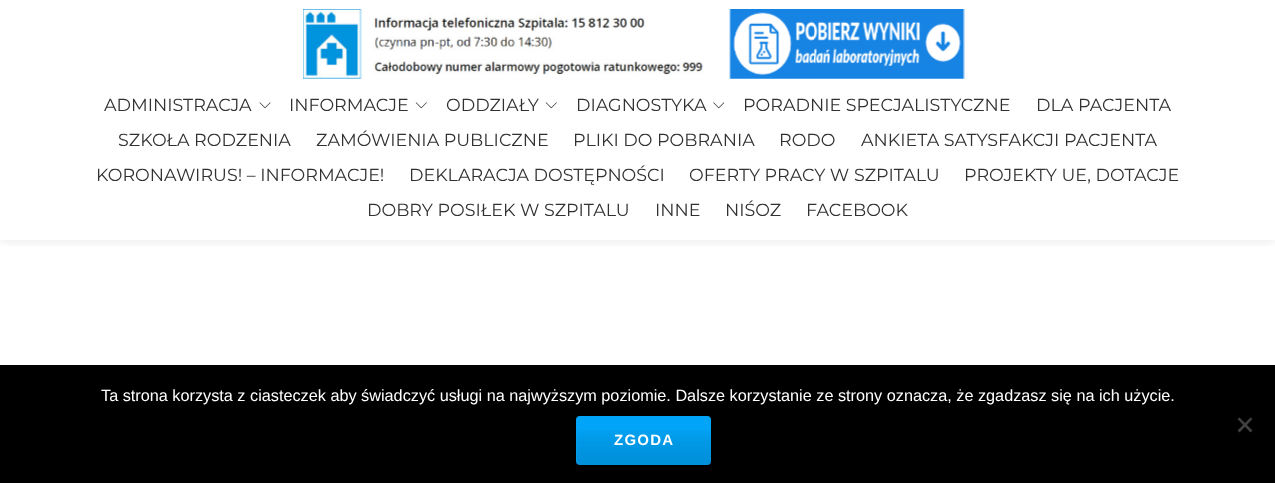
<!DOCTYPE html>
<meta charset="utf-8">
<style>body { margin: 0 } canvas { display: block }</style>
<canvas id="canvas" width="1275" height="483"></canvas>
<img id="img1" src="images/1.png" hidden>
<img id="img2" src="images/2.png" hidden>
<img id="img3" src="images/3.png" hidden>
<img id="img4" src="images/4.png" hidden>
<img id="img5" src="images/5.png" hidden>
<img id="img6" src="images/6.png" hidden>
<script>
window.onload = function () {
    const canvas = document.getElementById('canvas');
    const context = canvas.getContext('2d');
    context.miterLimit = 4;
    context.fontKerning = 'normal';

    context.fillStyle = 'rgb(255, 255, 255)';
    context.fillRect(0, 0, 1275, 483);
    context.save();
    context.beginPath();
    context.rect(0, 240, 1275, 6);
    context.clip();
    context.fillStyle = 'rgba(50, 50, 50, 0.08)';
    context.filter = 'blur(5px)';
    context.beginPath();
    context.rect(0, 3, 1275, 240);
    context.fill();
    context.filter = 'none';
    context.restore();
    context.drawImage(document.getElementById('img1'), 303, 9, 401, 70);
    context.drawImage(document.getElementById('img2'), 729, 9, 236, 70);
    context.drawImage(document.getElementById('img3'), 259, 102, 12, 7);
    context.drawImage(document.getElementById('img4'), 415, 102, 12, 7);
    context.drawImage(document.getElementById('img4'), 545, 102, 12, 7);
    context.drawImage(document.getElementById('img5'), 713, 102, 12, 7);
    context.fillStyle = 'rgb(0, 0, 0)';
    context.fillRect(0, 365, 1275, 118);
    context.fillStyle = 'rgb(64, 64, 64)';
    context.beginPath();
    context.moveTo(1250.5, 417.5);
    context.lineTo(1252.5, 419);
    context.lineTo(1239.5, 432.5);
    context.lineTo(1237.5, 430.5);
    context.closePath();
    context.fill();
    context.beginPath();
    context.moveTo(1237.5, 419);
    context.lineTo(1239.5, 417.5);
    context.lineTo(1252.5, 430.5);
    context.lineTo(1250.5, 432.5);
    context.closePath();
    context.fill();
    context.fillStyle = 'rgb(0, 165, 249)';
    context.beginPath();
    context.roundRect(576, 416, 135, 49, 4);
    context.fill();
    context.drawImage(document.getElementById('img6'), 576, 429, 135, 36);
    context.font = '17.5px Montserrat';
    context.fillStyle = 'rgb(49, 49, 49)';
    context.fillText('ADMINISTRACJA', 104, 111);
    context.fillText('INFORMACJE', 289, 111);
    context.fillText('ODDZIAŁY', 446, 111);
    context.fillText('DIAGNOSTYKA', 576, 111);
    context.fillText('PORADNIE SPECJALISTYCZNE', 743, 111);
    context.fillText('DLA PACJENTA', 1036, 111);
    context.fillText('SZKOŁA RODZENIA', 118, 146);
    context.fillText('ZAMÓWIENIA PUBLICZNE', 316, 146);
    context.fillText('PLIKI DO POBRANIA', 573, 146);
    context.fillText('RODO', 779, 146);
    context.fillText('ANKIETA SATYSFAKCJI PACJENTA', 861, 146);
    context.fillText('KORONAWIRUS! – INFORMACJE!', 96, 181);
    context.fillText('DEKLARACJA DOSTĘPNOŚCI', 409, 181);
    context.fillText('OFERTY PRACY W SZPITALU', 689, 181);
    context.fillText('PROJEKTY UE, DOTACJE', 964, 181);
    context.fillText('DOBRY POSIŁEK W SZPITALU', 367, 216);
    context.fillText('INNE', 655, 216);
    context.fillText('NIŚOZ', 725, 216);
    context.fillText('FACEBOOK', 806, 216);
    context.font = '16.25px Liberation Sans';
    context.fillStyle = 'rgb(255, 255, 255)';
    context.fillText('Ta strona korzysta z ciasteczek aby świadczyć usługi na najwyższym poziomie. Dalsze korzystanie ze strony oznacza, że zgadzasz się na ich użycie.', 101, 401);
    context.letterSpacing = '1.25px';
    context.font = 'bold 15px Liberation Sans';
    context.fillText('ZGODA', 614, 445);
};
</script>
